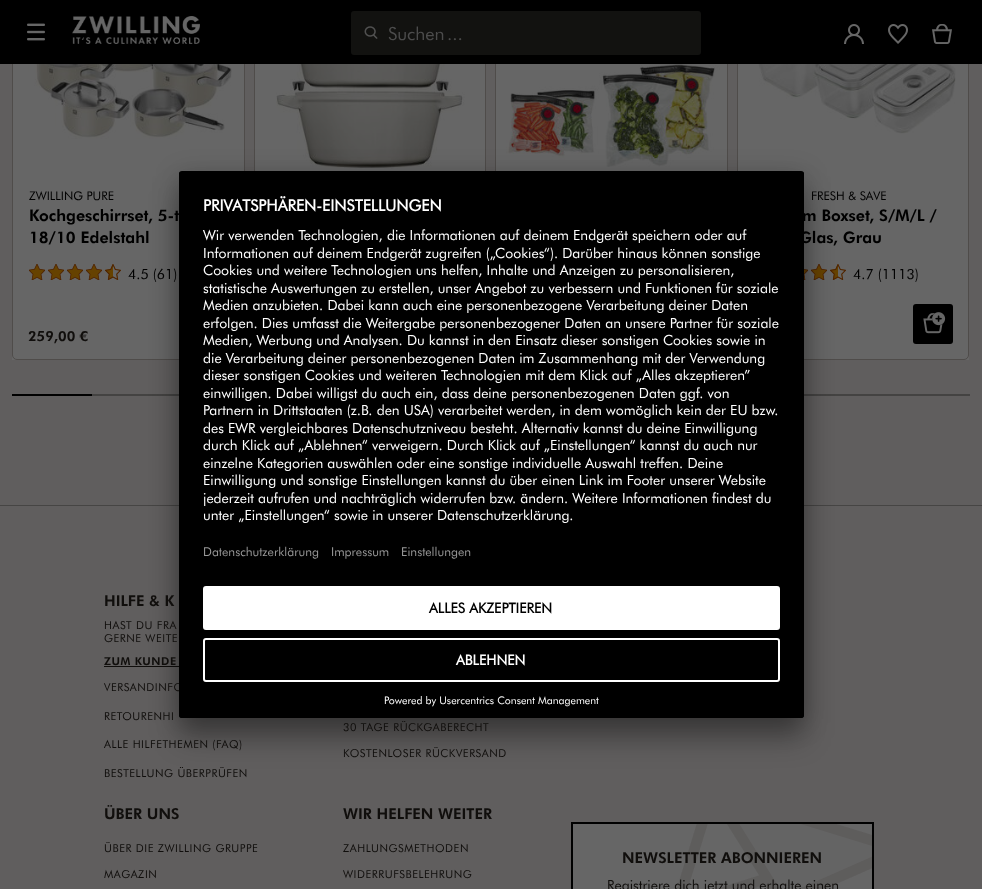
<!DOCTYPE html>
<meta charset="utf-8">
<style>body { margin: 0 } canvas { display: block }</style>
<canvas id="canvas" width="982" height="889"></canvas>
<img id="img1" src="images/1.png" hidden>
<img id="img2" src="images/2.png" hidden>
<img id="img3" src="images/3.png" hidden>
<img id="img4" src="images/4.png" hidden>
<img id="img5" src="images/5.png" hidden>
<img id="img6" src="images/6.png" hidden>
<img id="img7" src="images/7.png" hidden>
<img id="img8" src="images/8.png" hidden>
<img id="img9" src="images/9.png" hidden>
<img id="img10" src="images/10.png" hidden>
<img id="img11" src="images/11.png" hidden>
<img id="img12" src="images/12.png" hidden>
<img id="img13" src="images/13.png" hidden>
<img id="img14" src="images/14.png" hidden>
<img id="img15" src="images/15.png" hidden>
<script>
window.onload = function () {
    const canvas = document.getElementById('canvas');
    const context = canvas.getContext('2d');
    context.miterLimit = 4;
    context.fontKerning = 'normal';

    context.fillStyle = 'rgb(96, 94, 94)';
    context.fillRect(0, 0, 982, 889);
    context.fillStyle = 'rgb(102, 102, 102)';
    context.fillRect(12, 64, 232, 296);
    context.beginPath();
    context.roundRect(12.5, -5.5, 232, 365, 4.5);
    context.strokeStyle = 'rgb(79, 76, 74)';
    context.stroke();
    context.fillRect(255, 64, 230, 107);
    context.strokeRect(254.5, -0.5, 231, 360);
    context.fillRect(496, 64, 231, 107);
    context.strokeRect(495.5, -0.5, 232, 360);
    context.fillRect(738, 64, 231, 296);
    context.beginPath();
    context.roundRect(737.5, -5.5, 231, 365, 4.5);
    context.stroke();
    context.fillStyle = 'rgb(0, 0, 0)';
    context.fillRect(0, 0, 982, 64);
    context.drawImage(document.getElementById('img1'), 27, 23, 18, 18);
    context.drawImage(document.getElementById('img2'), 72, 16, 128, 28);
    context.fillStyle = 'rgb(18, 18, 16)';
    context.beginPath();
    context.roundRect(351, 11, 350, 44, 3);
    context.fill();
    context.drawImage(document.getElementById('img3'), 364, 26, 14, 13);
    context.drawImage(document.getElementById('img4'), 844, 24, 20, 20);
    context.drawImage(document.getElementById('img5'), 888, 24, 20, 20);
    context.drawImage(document.getElementById('img6'), 932, 24, 20, 20);
    context.drawImage(document.getElementById('img7'), 21, 64, 211, 75);
    context.drawImage(document.getElementById('img8'), 29, 264, 16, 16);
    context.drawImage(document.getElementById('img8'), 48, 264, 16, 16);
    context.drawImage(document.getElementById('img8'), 67, 264, 16, 16);
    context.drawImage(document.getElementById('img8'), 86, 264, 16, 16);
    context.drawImage(document.getElementById('img9'), 105, 264, 16, 16);
    context.drawImage(document.getElementById('img10'), 276, 64, 189, 105);
    context.drawImage(document.getElementById('img11'), 506, 64, 214, 103);
    context.drawImage(document.getElementById('img12'), 747, 64, 209, 70);
    context.drawImage(document.getElementById('img13'), 804, 269, 4, 11);
    context.drawImage(document.getElementById('img8'), 811, 264, 16, 16);
    context.drawImage(document.getElementById('img9'), 830, 264, 16, 16);
    context.fillStyle = 'rgb(0, 0, 0)';
    context.beginPath();
    context.roundRect(913, 304, 40, 40, 3);
    context.fill();
    context.drawImage(document.getElementById('img14'), 923, 312, 23, 22);
    context.fillRect(12, 394, 80, 2);
    context.fillStyle = 'rgb(68, 67, 66)';
    context.fillRect(92, 394, 87, 2);
    context.fillRect(804, 394, 166, 2);
    context.fillStyle = 'rgb(70, 69, 68)';
    context.fillRect(0, 505, 982, 1);
    context.fillStyle = 'rgb(16, 14, 12)';
    context.fillRect(104, 666, 75, 1);
    context.fillStyle = 'rgb(102, 102, 102)';
    context.fillRect(573, 824, 299, 65);
    context.drawImage(document.getElementById('img15'), 677, 824, 195, 65);
    context.strokeStyle = 'rgb(0, 0, 0)';
    context.lineWidth = 2;
    context.strokeRect(572, 823, 301, 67);
    context.fillStyle = 'rgba(0, 0, 0, 0.3)';
    context.filter = 'blur(14px)';
    context.beginPath();
    context.roundRect(179, 191, 625, 547, 3);
    context.fill();
    context.filter = 'none';
    context.fillStyle = 'rgba(0, 0, 0, 0.22)';
    context.filter = 'blur(13px)';
    context.beginPath();
    context.roundRect(179, 176, 625, 547, 3);
    context.fill();
    context.filter = 'none';
    context.font = '18px Futura';
    context.fillStyle = 'rgb(76, 76, 76)';
    context.fillText('Suchen', 388, 40);
    context.fillText('...', 447, 40);
    context.font = '12px Futura';
    context.fillStyle = 'rgb(0, 0, 0)';
    context.fillText('ZWILLING PURE', 29, 200);
    context.font = 'bold 16px Futura';
    context.fillText('Kochgeschirrset, 5-t', 29, 221);
    context.fillText('18/10 Edelstahl', 29, 243);
    context.font = '14px Futura';
    context.fillText('4.5 (61)', 128, 279);
    context.font = 'bold 14px Futura';
    context.fillStyle = 'rgb(16, 14, 12)';
    context.fillText('259,00 €', 28, 341);
    context.font = '12px Futura';
    context.fillStyle = 'rgb(0, 0, 0)';
    context.fillText('FRESH & SAVE', 811, 200);
    context.font = 'bold 16px Futura';
    context.fillText('m Boxset, S/M/L /', 802, 221);
    context.fillText('Glas, Grau', 799, 243);
    context.font = '14px Futura';
    context.fillText('4.7 (1113)', 853, 279);
    context.font = 'bold 15px Futura';
    context.fillStyle = 'rgb(16, 14, 12)';
    context.fillText('HILFE & K', 104, 606);
    context.letterSpacing = '0.55px';
    context.font = '11px Futura';
    context.fillText('HAST DU FRA', 104, 629);
    context.fillText('GERNE WEITE', 104, 642);
    context.font = 'bold 11px Futura';
    context.fillText('ZUM KUNDE', 104, 665);
    context.font = '11px Futura';
    context.fillText('VERSANDINFO', 104, 691);
    context.fillText('RETOURENHI', 104, 720);
    context.fillText('ALLE HILFETHEMEN (FAQ)', 104, 748);
    context.fillText('BESTELLUNG ÜBERPRÜFEN', 104, 777);
    context.fillText('30 TAGE RÜCKGABERECHT', 343, 731);
    context.fillText('KOSTENLOSER RÜCKVERSAND', 343, 757);
    context.letterSpacing = '0px';
    context.font = 'bold 15px Futura';
    context.fillText('ÜBER UNS', 104, 819);
    context.letterSpacing = '0.55px';
    context.font = '11px Futura';
    context.fillText('ÜBER DIE ZWILLING GRUPPE', 104, 852);
    context.fillText('MAGAZIN', 104, 878);
    context.letterSpacing = '0px';
    context.font = 'bold 15px Futura';
    context.fillText('WIR HELFEN WEITER', 343, 819);
    context.letterSpacing = '0.55px';
    context.font = '11px Futura';
    context.fillText('ZAHLUNGSMETHODEN', 343, 852);
    context.fillText('WIDERRUFSBELEHRUNG', 343, 878);
    context.letterSpacing = '0px';
    context.font = 'bold 15px Futura';
    context.fillText('NEWSLETTER ABONNIEREN', 622, 863);
    context.font = '14px Futura';
    context.fillText('Registriere dich jetzt und erhalte einen', 607, 890);
    context.fillStyle = 'rgb(0, 0, 0)';
    context.beginPath();
    context.roundRect(179, 171, 625, 547, 3);
    context.fill();
    context.save();
    context.beginPath();
    context.roundRect(179, 171, 625, 547, 3);
    context.clip();
    context.beginPath();
    context.roundRect(179, 171, 625, 403, [3, 3, 0, 0]);
    context.clip();
    context.fillRect(179, 172, 625, 402);
    context.restore();
    context.font = 'bold 15.75px "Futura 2"';
    context.fillStyle = 'rgb(255, 255, 255)';
    context.fillText('PRIVATSPHÄREN-EINSTELLUNGEN', 203, 211);
    context.font = '14px Futura';
    context.fillText('Wir verwenden Technologien, die Informationen auf deinem Endgerät speichern oder auf', 203, 240);
    context.fillText('Informationen auf deinem Endgerät zugreifen („Cookies“). Darüber hinaus können sonstige', 203, 258);
    context.fillText('Cookies und weitere Technologien uns helfen, Inhalte und Anzeigen zu personalisieren,', 203, 275);
    context.fillText('statistische Auswertungen zu erstellen, unser Angebot zu verbessern und Funktionen für soziale', 203, 293);
    context.fillText('Medien anzubieten. Dabei kann auch eine personenbezogene Verarbeitung deiner Daten', 203, 310);
    context.fillText('erfolgen. Dies umfasst die Weitergabe personenbezogener Daten an unsere Partner für soziale', 203, 328);
    context.fillText('Medien, Werbung und Analysen. Du kannst in den Einsatz dieser sonstigen Cookies sowie in', 203, 345);
    context.fillText('die Verarbeitung deiner personenbezogenen Daten im Zusammenhang mit der Verwendung', 203, 363);
    context.fillText('dieser sonstigen Cookies und weiteren Technologien mit dem Klick auf „Alles akzeptieren”', 203, 380);
    context.fillText('einwilligen. Dabei willigst du auch ein, dass deine personenbezogenen Daten ggf. von', 203, 398);
    context.fillText('Partnern in Drittstaaten (z.B. den USA) verarbeitet werden, in dem womöglich kein der EU bzw.', 203, 415);
    context.fillText('des EWR vergleichbares Datenschutzniveau besteht. Alternativ kannst du deine Einwilligung', 203, 433);
    context.fillText('durch Klick auf „Ablehnen“ verweigern. Durch Klick auf „Einstellungen“ kannst du auch nur', 203, 450);
    context.fillText('einzelne Kategorien auswählen oder eine sonstige individuelle Auswahl treffen. Deine', 203, 468);
    context.fillText('Einwilligung und sonstige Einstellungen kannst du über einen Link im Footer unserer Website', 203, 485);
    context.fillText('jederzeit aufrufen und nachträglich widerrufen bzw. ändern. Weitere Informationen findest du', 203, 503);
    context.fillText('unter „Einstellungen“ sowie in unserer Datenschutzerklärung.', 203, 520);
    context.font = '12.25px Futura';
    context.fillStyle = 'rgb(153, 153, 153)';
    context.fillText('Datenschutzerklärung', 203, 556);
    context.fillText('Impressum', 331, 556);
    context.fillText('Einstellungen', 401, 556);
    context.fillStyle = 'rgb(0, 0, 0)';
    context.beginPath();
    context.roundRect(179, 574, 625, 144, [0, 0, 3, 3]);
    context.fill();
    context.fillStyle = 'rgb(255, 255, 255)';
    context.beginPath();
    context.roundRect(204, 587, 575, 42, 2);
    context.fill();
    context.strokeStyle = 'rgb(255, 255, 255)';
    context.stroke();
    context.font = 'bold 14px "Futura 2"';
    context.fillStyle = 'rgb(0, 0, 0)';
    context.fillText('ALLES AKZEPTIEREN', 429, 613);
    context.beginPath();
    context.roundRect(204, 639, 575, 42, 2);
    context.stroke();
    context.fillStyle = 'rgb(255, 255, 255)';
    context.fillText('ABLEHNEN', 456, 665);
    context.font = '10.5px Futura';
    context.fillText('Powered by Usercentrics Consent Management', 384, 704);
};
</script>
